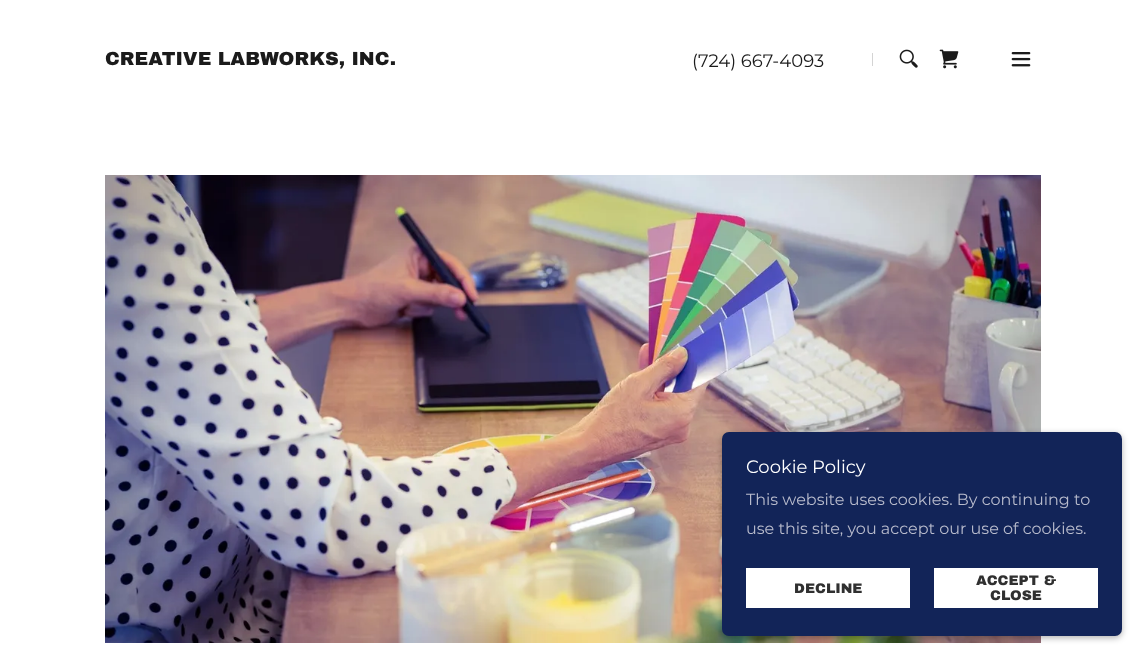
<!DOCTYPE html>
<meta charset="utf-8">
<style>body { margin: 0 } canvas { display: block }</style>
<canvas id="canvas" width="1146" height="660"></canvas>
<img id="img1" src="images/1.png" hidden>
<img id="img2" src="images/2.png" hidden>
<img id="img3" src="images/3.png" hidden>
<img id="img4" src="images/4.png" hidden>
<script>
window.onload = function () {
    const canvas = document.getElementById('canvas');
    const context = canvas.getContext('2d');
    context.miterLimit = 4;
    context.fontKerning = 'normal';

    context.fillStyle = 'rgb(255, 255, 255)';
    context.fillRect(0, 0, 1146, 660);
    context.fillStyle = 'rgb(212, 212, 212)';
    context.fillRect(872, 53, 1, 13);
    context.drawImage(document.getElementById('img1'), 899, 49, 19, 19);
    context.drawImage(document.getElementById('img2'), 939, 49, 20, 20);
    context.drawImage(document.getElementById('img3'), 1011, 52, 20, 15);
    context.drawImage(document.getElementById('img4'), 105, 175, 936, 468);
    context.fillStyle = 'rgba(0, 0, 0, 0.3)';
    context.filter = 'blur(3px)';
    context.beginPath();
    context.roundRect(722, 434, 400, 204, 7);
    context.fill();
    context.filter = 'none';
    context.fillStyle = 'rgb(18, 36, 88)';
    context.beginPath();
    context.roundRect(722, 432, 400, 204, 7);
    context.fill();
    context.fillStyle = 'rgb(255, 255, 255)';
    context.fillRect(746, 568, 164, 40);
    context.fillRect(934, 568, 164, 40);
    context.font = '900 19px Archivo Black';
    context.fillStyle = 'rgb(27, 27, 27)';
    context.fillText('CREATIVE LABWORKS, INC.', 105, 65);
    context.font = '18px Montserrat';
    context.fillText('(724) 667-4093', 692, 67);
    context.fillStyle = 'rgb(255, 255, 255)';
    context.fillText('Cookie Policy', 746, 473);
    context.font = '16px Montserrat';
    context.fillStyle = 'rgb(184, 187, 204)';
    context.fillText('This website uses cookies. By continuing to', 746, 505);
    context.fillText('use this site, you accept our use of cookies.', 746, 534);
    context.font = '900 14px Archivo Black';
    context.fillStyle = 'rgb(48, 48, 48)';
    context.fillText('DECLINE', 794, 593);
    context.fillText('ACCEPT &', 976, 585);
    context.fillText('CLOSE', 990, 600);
};
</script>
